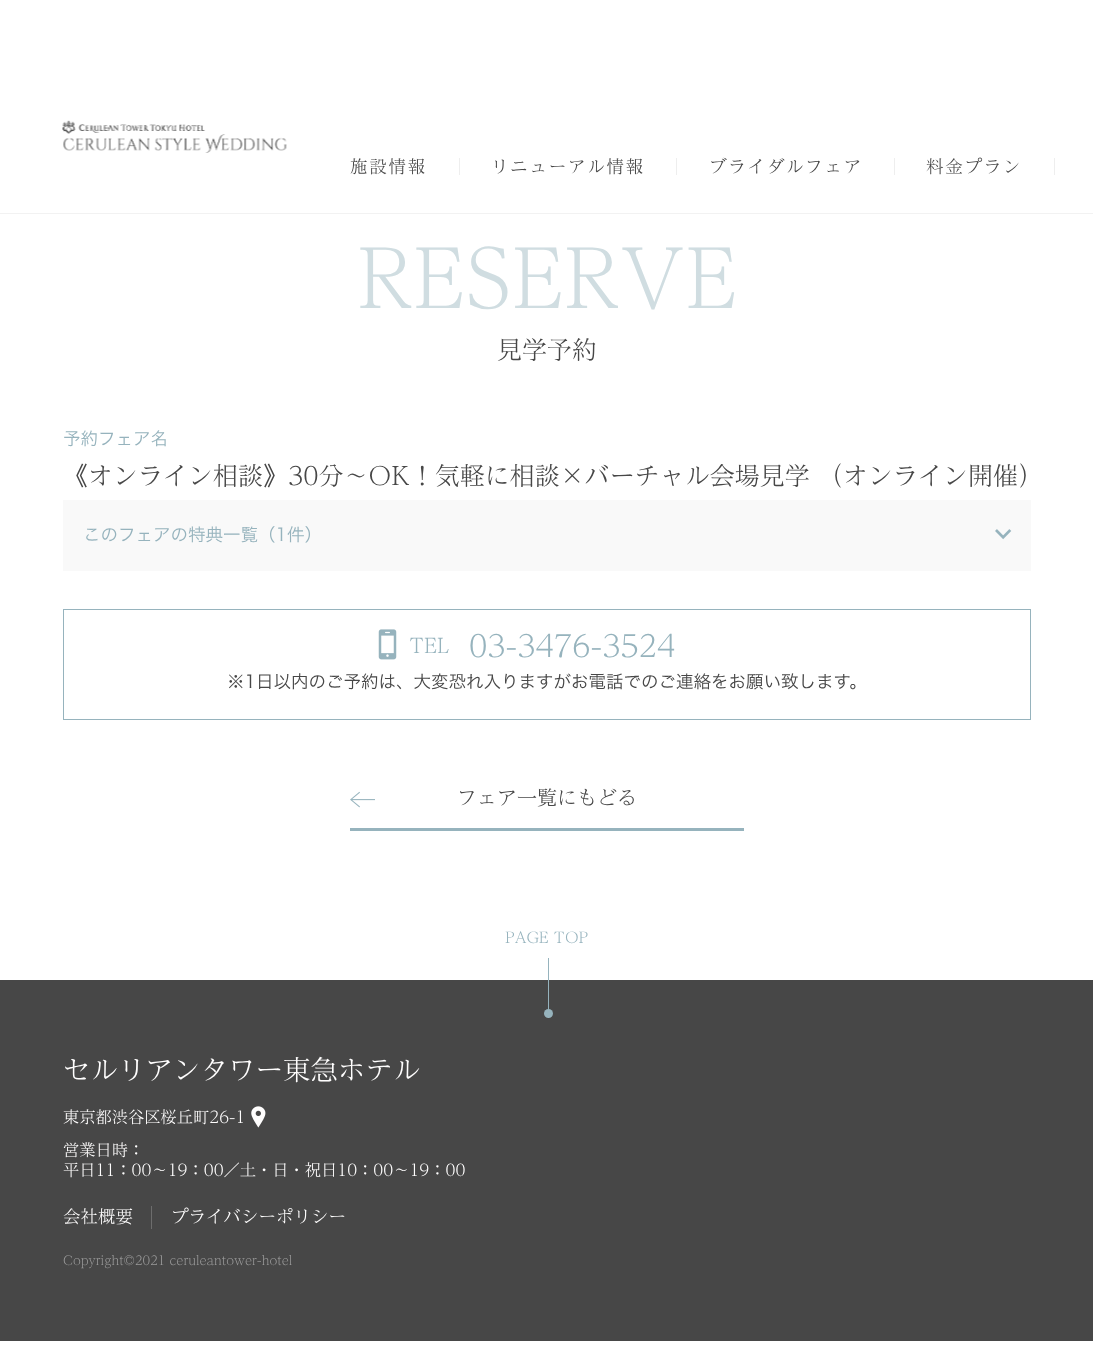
<!DOCTYPE html>
<meta charset="utf-8">
<style>body { margin: 0 } canvas { display: block }</style>
<canvas id="canvas" width="1093" height="1348"></canvas>
<img id="img1" src="images/1.png" hidden>
<img id="img2" src="images/2.png" hidden>
<img id="img3" src="images/3.png" hidden>
<img id="img4" src="images/4.png" hidden>
<img id="img5" src="images/5.png" hidden>
<script>
window.onload = function () {
    const canvas = document.getElementById('canvas');
    const context = canvas.getContext('2d');
    context.miterLimit = 4;
    context.fontKerning = 'normal';

    context.fillStyle = 'rgb(255, 255, 255)';
    context.fillRect(0, 0, 1093, 1348);
    context.fillStyle = 'rgb(242, 242, 242)';
    context.fillRect(0, 213, 1093, 1);
    context.drawImage(document.getElementById('img1'), 62, 120, 225, 33);
    context.fillStyle = 'rgb(238, 238, 238)';
    context.fillRect(459, 158, 1, 17);
    context.fillRect(676, 158, 1, 17);
    context.fillRect(894, 158, 1, 17);
    context.fillRect(1054, 158, 1, 17);
    context.fillStyle = 'rgb(249, 249, 249)';
    context.fillRect(63, 500, 968, 71);
    context.drawImage(document.getElementById('img2'), 995, 529, 17, 11);
    context.strokeStyle = 'rgb(150, 179, 189)';
    context.strokeRect(63.5, 609.5, 967, 110);
    context.drawImage(document.getElementById('img3'), 378, 629, 19, 31);
    context.drawImage(document.getElementById('img4'), 350, 791, 25, 17);
    context.fillStyle = 'rgb(150, 179, 189)';
    context.fillRect(350, 828, 394, 3);
    context.fillStyle = 'rgb(71, 71, 71)';
    context.fillRect(0, 980, 1093, 361);
    context.fillStyle = 'rgb(150, 179, 189)';
    context.fillRect(548, 958, 1, 60);
    context.beginPath();
    context.arc(548.5, 1013.5, 4.5, 0, 2 * Math.PI);
    context.fill();
    context.drawImage(document.getElementById('img5'), 251, 1106, 15, 22);
    context.fillStyle = 'rgb(109, 109, 109)';
    context.fillRect(151, 1206, 1, 23);
    context.letterSpacing = '1.75px';
    context.font = '300 17.5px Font';
    context.fillStyle = 'rgb(71, 71, 71)';
    context.fillText('施設情報', 350, 173);
    context.fillText('リニューアル情報', 491, 173);
    context.fillText('ブライダルフェア', 709, 173);
    context.fillText('料金プラン', 926, 173);
    context.letterSpacing = '0px';
    context.font = '300 80px Font';
    context.fillStyle = 'rgb(208, 221, 225)';
    context.fillText('RESERVE', 357, 308);
    context.font = '300 25px Font';
    context.fillStyle = 'rgb(71, 71, 71)';
    context.fillText('見学予約', 497, 359);
    context.font = '300 17.5px "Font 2"';
    context.fillStyle = 'rgb(150, 179, 189)';
    context.fillText('予約フェア名', 63, 445);
    context.font = '300 25px Font';
    context.fillStyle = 'rgb(71, 71, 71)';
    context.fillText('《オンライン相談》30分～OK！気軽に相談×バーチャル会場見学 （オンライン開催）', 63, 485);
    context.font = '300 17.5px "Font 2"';
    context.fillStyle = 'rgb(150, 179, 189)';
    context.fillText('このフェアの特典一覧（1件）', 83, 541);
    context.font = '300 20px Font';
    context.fillText('TEL', 409, 653);
    context.font = '300 30px Font';
    context.fillText('03-3476-3524', 469, 657);
    context.font = '300 17.5px "Font 2"';
    context.fillStyle = 'rgb(71, 71, 71)';
    context.fillText('※1日以内のご予約は、大変恐れ入りますがお電話でのご連絡をお願い致します。', 227, 688);
    context.font = '300 20px Font';
    context.fillText('フェア一覧にもどる', 457, 805);
    context.font = '300 15px Font';
    context.fillStyle = 'rgb(150, 179, 189)';
    context.fillText('PAGE TOP', 505, 943);
    context.font = '300 27.5px Font';
    context.fillStyle = 'rgb(255, 254, 254)';
    context.fillText('セルリアンタワー東急ホテル', 63, 1080);
    context.font = '300 16.25px Font';
    context.fillText('東京都渋谷区桜丘町26-1', 63, 1123);
    context.fillText('営業日時：', 63, 1156);
    context.fillText('平日11：00～19：00／土・日・祝日10：00～19：00', 63, 1176);
    context.font = '300 17.5px Font';
    context.fillText('会社概要', 63, 1223);
    context.fillText('プライバシーポリシー', 171, 1223);
    context.font = '300 12.5px Font';
    context.fillStyle = 'rgb(155, 155, 155)';
    context.fillText('Copyright©2021 ceruleantower-hotel', 63, 1265);
};
</script>
